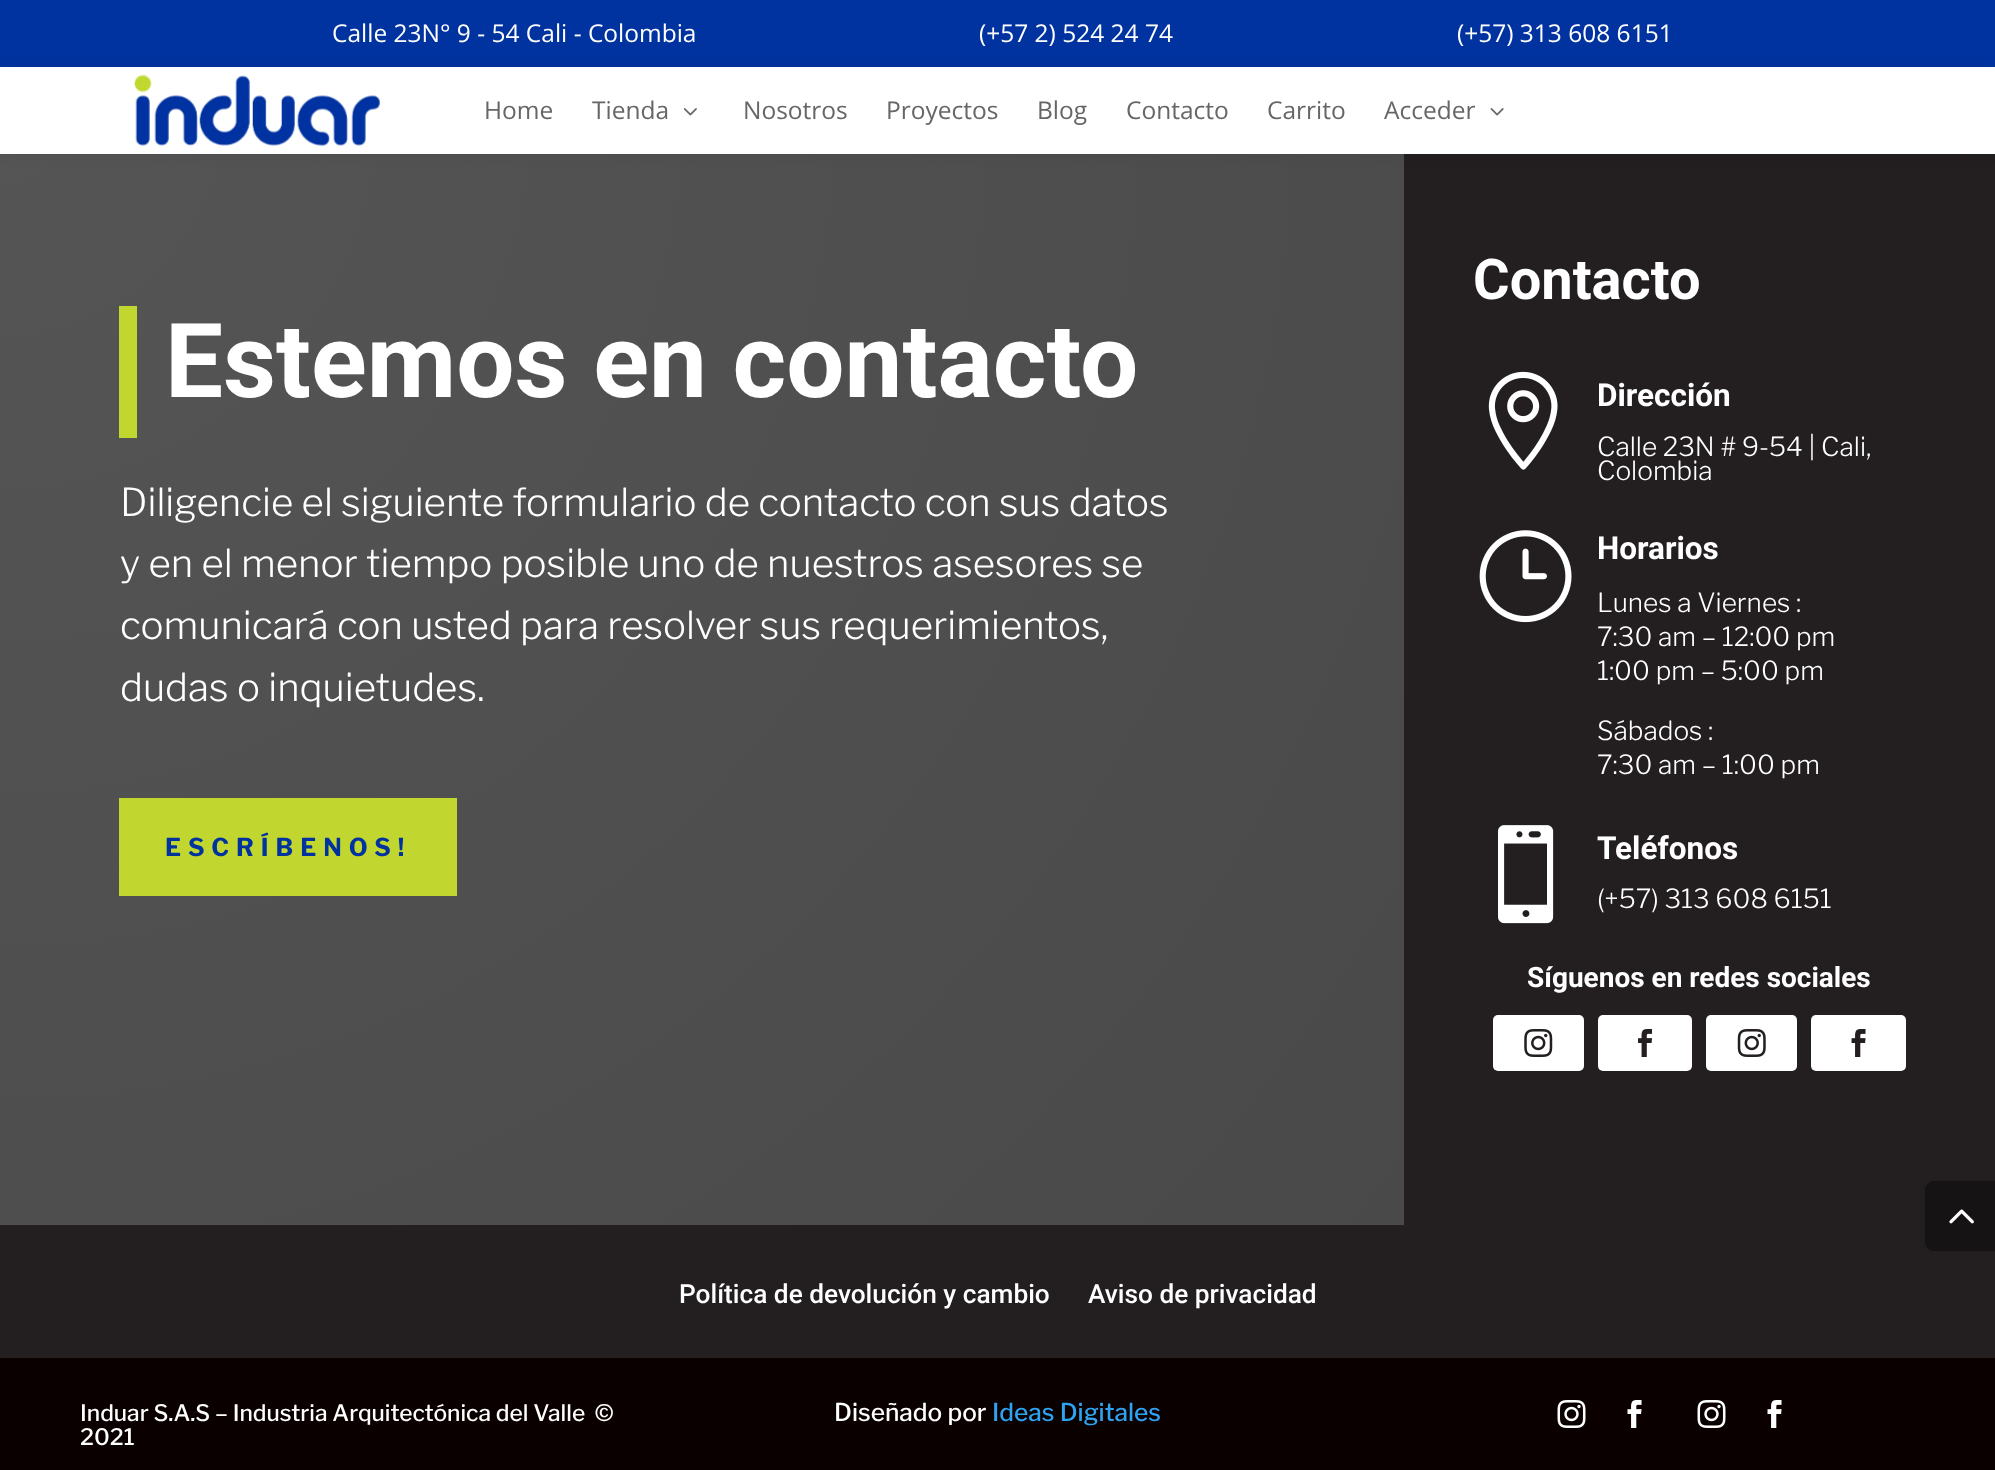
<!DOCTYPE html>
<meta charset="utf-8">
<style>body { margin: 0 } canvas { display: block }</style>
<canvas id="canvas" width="1995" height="1470"></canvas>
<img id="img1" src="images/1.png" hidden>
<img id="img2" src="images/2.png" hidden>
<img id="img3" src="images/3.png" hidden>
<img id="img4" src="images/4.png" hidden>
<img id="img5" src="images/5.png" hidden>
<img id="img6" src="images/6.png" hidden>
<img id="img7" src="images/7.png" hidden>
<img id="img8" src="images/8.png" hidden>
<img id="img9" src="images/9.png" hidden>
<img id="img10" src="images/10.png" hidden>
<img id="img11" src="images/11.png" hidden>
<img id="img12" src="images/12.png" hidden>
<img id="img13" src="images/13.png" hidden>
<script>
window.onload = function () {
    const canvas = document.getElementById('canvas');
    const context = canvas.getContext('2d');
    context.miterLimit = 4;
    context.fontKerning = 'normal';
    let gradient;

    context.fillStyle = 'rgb(255, 255, 255)';
    context.fillRect(0, 0, 1995, 1470);
    context.fillStyle = 'rgb(0, 51, 160)';
    context.fillRect(0, 0, 1995, 67);
    gradient = context.createRadialGradient(0, 107, 0, 0, 107, 2287);
    gradient.addColorStop(0, 'rgb(85, 85, 85)');
    gradient.addColorStop(1, 'rgb(70, 70, 70)');
    context.fillStyle = gradient;
    context.fillRect(0, 154, 1404, 1071);
    context.fillStyle = 'rgb(35, 31, 32)';
    context.fillRect(1404, 154, 591, 1071);
    context.fillStyle = 'rgba(0, 0, 0, 0.15)';
    context.filter = 'blur(9px)';
    context.beginPath();
    context.rect(5, 72, 1985, 77);
    context.fill();
    context.filter = 'none';
    context.fillStyle = 'rgb(255, 255, 255)';
    context.fillRect(0, 67, 1995, 87);
    context.drawImage(document.getElementById('img1'), 134, 74, 246, 72);
    context.drawImage(document.getElementById('img2'), 683, 108, 14, 8);
    context.drawImage(document.getElementById('img3'), 1490, 108, 14, 8);
    context.fillStyle = 'rgb(193, 215, 47)';
    context.fillRect(119, 306, 18, 132);
    context.fillRect(119, 798, 338, 98);
    context.drawImage(document.getElementById('img4'), 1488, 371, 70, 99);
    context.drawImage(document.getElementById('img5'), 1479, 530, 93, 93);
    context.drawImage(document.getElementById('img6'), 1498, 825, 56, 99);
    context.fillStyle = 'rgb(255, 255, 255)';
    context.beginPath();
    context.roundRect(1493, 1015, 91, 56, 5);
    context.fill();
    context.drawImage(document.getElementById('img7'), 1524, 1029, 29, 28);
    context.beginPath();
    context.roundRect(1598, 1015, 94, 56, 5);
    context.fill();
    context.drawImage(document.getElementById('img8'), 1638, 1029, 15, 28);
    context.beginPath();
    context.roundRect(1706, 1015, 91, 56, 5);
    context.fill();
    context.drawImage(document.getElementById('img9'), 1737, 1029, 29, 28);
    context.beginPath();
    context.roundRect(1811, 1015, 95, 56, 5);
    context.fill();
    context.drawImage(document.getElementById('img10'), 1851, 1029, 15, 28);
    context.fillStyle = 'rgb(35, 31, 32)';
    context.fillRect(0, 1225, 1995, 133);
    context.fillStyle = 'rgb(10, 0, 0)';
    context.fillRect(0, 1358, 1995, 112);
    context.drawImage(document.getElementById('img11'), 1557, 1400, 29, 28);
    context.drawImage(document.getElementById('img12'), 1627, 1400, 15, 28);
    context.drawImage(document.getElementById('img11'), 1697, 1400, 29, 28);
    context.drawImage(document.getElementById('img12'), 1767, 1400, 15, 28);
    context.fillStyle = 'rgb(21, 19, 19)';
    context.beginPath();
    context.roundRect(1925, 1181, 70, 70, [9, 0, 0, 9]);
    context.fill();
    context.drawImage(document.getElementById('img13'), 1949, 1209, 25, 15);
    context.font = '24.5px Open Sans';
    context.fillStyle = 'rgb(255, 255, 255)';
    context.fillText('Calle 23N° 9 - 54 Cali - Colombia', 332, 42);
    context.fillText('(+57 2) 524 24 74', 979, 42);
    context.fillText('(+57) 313 608 6151', 1457, 42);
    context.fillStyle = 'rgb(102, 102, 102)';
    context.fillText('Home', 484, 119);
    context.fillText('Tienda', 592, 119);
    context.fillText('Nosotros', 743, 119);
    context.fillText('Proyectos', 886, 119);
    context.fillText('Blog', 1037, 119);
    context.fillText('Contacto', 1126, 119);
    context.fillText('Carrito', 1267, 119);
    context.fillText('Acceder', 1384, 119);
    context.font = 'bold 103.25px Roboto';
    context.fillStyle = 'rgb(255, 255, 255)';
    context.fillText('Estemos en contacto', 165, 397);
    context.font = '100 38.5px Libre Franklin';
    context.fillText('Diligencie el siguiente formulario de contacto con sus datos', 120, 516);
    context.fillText('y en el menor tiempo posible uno de nuestros asesores se', 120, 577);
    context.fillText('comunicará con usted para resolver sus requerimientos,', 120, 639);
    context.fillText('dudas o inquietudes.', 120, 701);
    context.letterSpacing = '7px';
    context.font = '100 24.5px "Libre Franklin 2"';
    context.fillStyle = 'rgb(0, 51, 160)';
    context.fillText('ESCRÍBENOS!', 165, 856);
    context.letterSpacing = '0px';
    context.font = 'bold 56px Roboto';
    context.fillStyle = 'rgb(255, 255, 255)';
    context.fillText('Contacto', 1473, 299);
    context.font = 'bold 31.5px Roboto';
    context.fillText('Dirección', 1597, 406);
    context.font = '100 26.25px Libre Franklin';
    context.fillText('Calle 23N # 9-54 | Cali,', 1597, 456);
    context.fillText('Colombia', 1597, 480);
    context.font = 'bold 31.5px Roboto';
    context.fillText('Horarios', 1597, 559);
    context.font = '100 26.25px Libre Franklin';
    context.fillText('Lunes a Viernes :', 1597, 612);
    context.fillText('7:30 am – 12:00 pm', 1597, 646);
    context.fillText('1:00 pm – 5:00 pm', 1597, 680);
    context.fillText('Sábados :', 1597, 740);
    context.fillText('7:30 am – 1:00 pm', 1597, 774);
    context.font = 'bold 31.5px Roboto';
    context.fillText('Teléfonos', 1597, 859);
    context.font = '100 26.25px Libre Franklin';
    context.fillText('(+57) 313 608 6151', 1597, 908);
    context.font = 'bold 28px Roboto';
    context.fillText('Síguenos en redes sociales', 1527, 987);
    context.font = '500 26.25px Roboto';
    context.fillText('Política de devolución y cambio', 679, 1303);
    context.fillText('Aviso de privacidad', 1088, 1303);
    context.font = '100 22.75px "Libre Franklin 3"';
    context.fillText('Induar S.A.S – Industria Arquitectónica del Valle  ©', 80, 1421);
    context.fillText('2021', 80, 1445);
    context.font = '100 24.5px "Libre Franklin 3"';
    context.fillText('Diseñado por', 834, 1421);
    context.fillStyle = 'rgb(46, 163, 242)';
    context.fillText('Ideas Digitales', 992, 1421);
};
</script>
